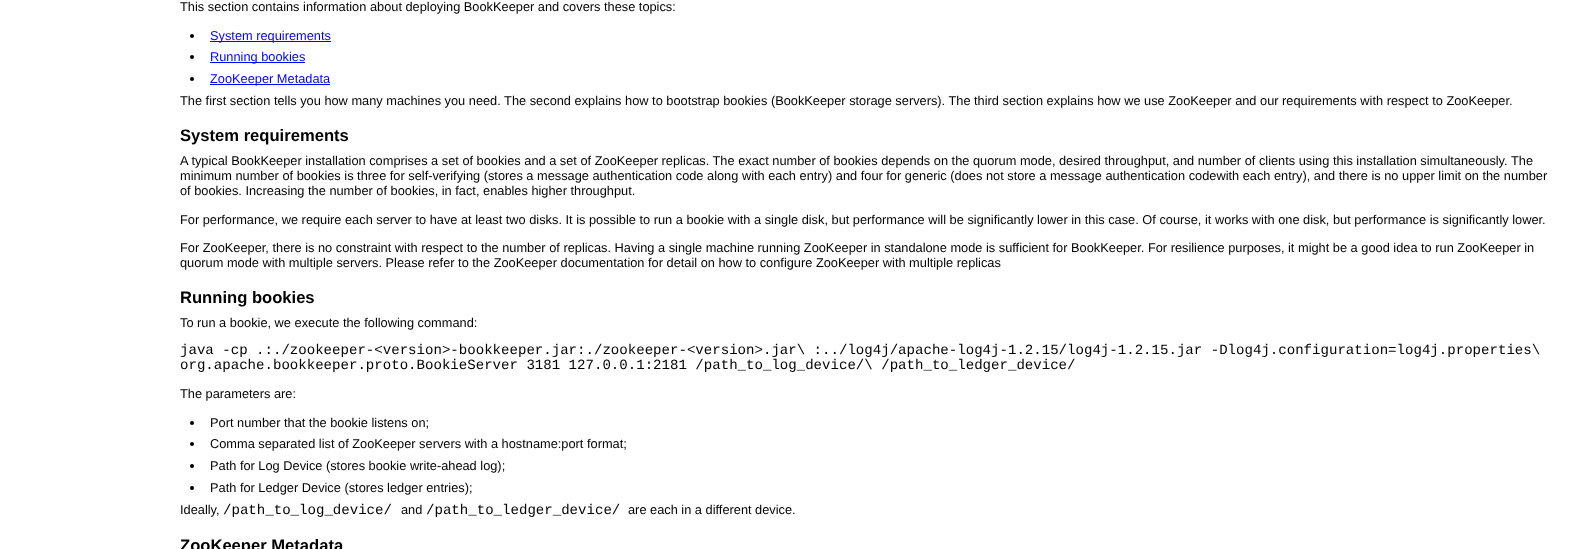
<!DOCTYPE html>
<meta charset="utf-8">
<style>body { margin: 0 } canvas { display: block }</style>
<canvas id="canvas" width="1578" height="549"></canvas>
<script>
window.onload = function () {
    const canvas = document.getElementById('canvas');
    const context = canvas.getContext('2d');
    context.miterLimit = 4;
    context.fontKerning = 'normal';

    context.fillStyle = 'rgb(255, 255, 255)';
    context.fillRect(0, 0, 1578, 549);
    context.fillStyle = 'rgb(0, 0, 0)';
    context.beginPath();
    context.arc(192, 36, 2, 0, 2 * Math.PI);
    context.fill();
    context.fillStyle = 'rgb(0, 0, 255)';
    context.fillRect(210, 41, 121, 1);
    context.fillStyle = 'rgb(0, 0, 0)';
    context.beginPath();
    context.arc(192, 57, 2, 0, 2 * Math.PI);
    context.fill();
    context.fillStyle = 'rgb(0, 0, 255)';
    context.fillRect(210, 62, 95, 1);
    context.fillStyle = 'rgb(0, 0, 0)';
    context.beginPath();
    context.arc(192, 79, 2, 0, 2 * Math.PI);
    context.fill();
    context.fillStyle = 'rgb(0, 0, 255)';
    context.fillRect(210, 84, 120, 1);
    context.fillStyle = 'rgb(0, 0, 0)';
    context.beginPath();
    context.arc(192, 423, 2, 0, 2 * Math.PI);
    context.fill();
    context.beginPath();
    context.arc(192, 444, 2, 0, 2 * Math.PI);
    context.fill();
    context.beginPath();
    context.arc(192, 466, 2, 0, 2 * Math.PI);
    context.fill();
    context.beginPath();
    context.arc(192, 488, 2, 0, 2 * Math.PI);
    context.fill();
    context.font = '12.8px Liberation Sans';
    context.fillText('This section contains information about deploying BookKeeper and covers these topics:', 180, 11);
    context.fillStyle = 'rgb(0, 0, 255)';
    context.fillText('System requirements', 210, 40);
    context.fillText('Running bookies', 210, 61);
    context.fillText('ZooKeeper Metadata', 210, 83);
    context.fillStyle = 'rgb(0, 0, 0)';
    context.fillText('The first section tells you how many machines you need. The second explains how to bootstrap bookies (BookKeeper storage servers). The third section explains how we use ZooKeeper and our requirements with respect to ZooKeeper.', 180, 105);
    context.font = 'bold 16.6px Liberation Sans';
    context.fillText('System requirements', 180, 141);
    context.font = '12.8px Liberation Sans';
    context.fillText('A typical BookKeeper installation comprises a set of bookies and a set of ZooKeeper replicas. The exact number of bookies depends on the quorum mode, desired throughput, and number of clients using this installation simultaneously. The', 180, 165);
    context.fillText('minimum number of bookies is three for self-verifying (stores a message authentication code along with each entry) and four for generic (does not store a message authentication codewith each entry), and there is no upper limit on the number', 180, 180);
    context.fillText('of bookies. Increasing the number of bookies, in fact, enables higher throughput.', 180, 195);
    context.fillText('For performance, we require each server to have at least two disks. It is possible to run a bookie with a single disk, but performance will be significantly lower in this case. Of course, it works with one disk, but performance is significantly lower.', 180, 224);
    context.fillText('For ZooKeeper, there is no constraint with respect to the number of replicas. Having a single machine running ZooKeeper in standalone mode is sufficient for BookKeeper. For resilience purposes, it might be a good idea to run ZooKeeper in', 180, 252);
    context.fillText('quorum mode with multiple servers. Please refer to the ZooKeeper documentation for detail on how to configure ZooKeeper with multiple replicas', 180, 267);
    context.font = 'bold 16.6px Liberation Sans';
    context.fillText('Running bookies', 180, 303);
    context.font = '12.8px Liberation Sans';
    context.fillText('To run a bookie, we execute the following command:', 180, 327);
    context.font = '14.08px Liberation Mono';
    context.fillText('java -cp .:./zookeeper-<version>-bookkeeper.jar:./zookeeper-<version>.jar\\ :../log4j/apache-log4j-1.2.15/log4j-1.2.15.jar -Dlog4j.configuration=log4j.properties\\', 180, 354);
    context.fillText('org.apache.bookkeeper.proto.BookieServer 3181 127.0.0.1:2181 /path_to_log_device/\\ /path_to_ledger_device/', 180, 369);
    context.font = '12.8px Liberation Sans';
    context.fillText('The parameters are:', 180, 398);
    context.fillText('Port number that the bookie listens on;', 210, 427);
    context.fillText('Comma separated list of ZooKeeper servers with a hostname:port format;', 210, 448);
    context.fillText('Path for Log Device (stores bookie write-ahead log);', 210, 470);
    context.fillText('Path for Ledger Device (stores ledger entries);', 210, 492);
    context.fillText('Ideally,', 180, 514);
    context.font = '14.08px Liberation Mono';
    context.fillText('/path_to_log_device/', 223, 514);
    context.font = '12.8px Liberation Sans';
    context.fillText('and', 401, 514);
    context.font = '14.08px Liberation Mono';
    context.fillText('/path_to_ledger_device/', 426, 514);
    context.font = '12.8px Liberation Sans';
    context.fillText('are each in a different device.', 628, 514);
    context.font = 'bold 16.6px Liberation Sans';
    context.fillText('ZooKeeper Metadata', 180, 551);
};
</script>
